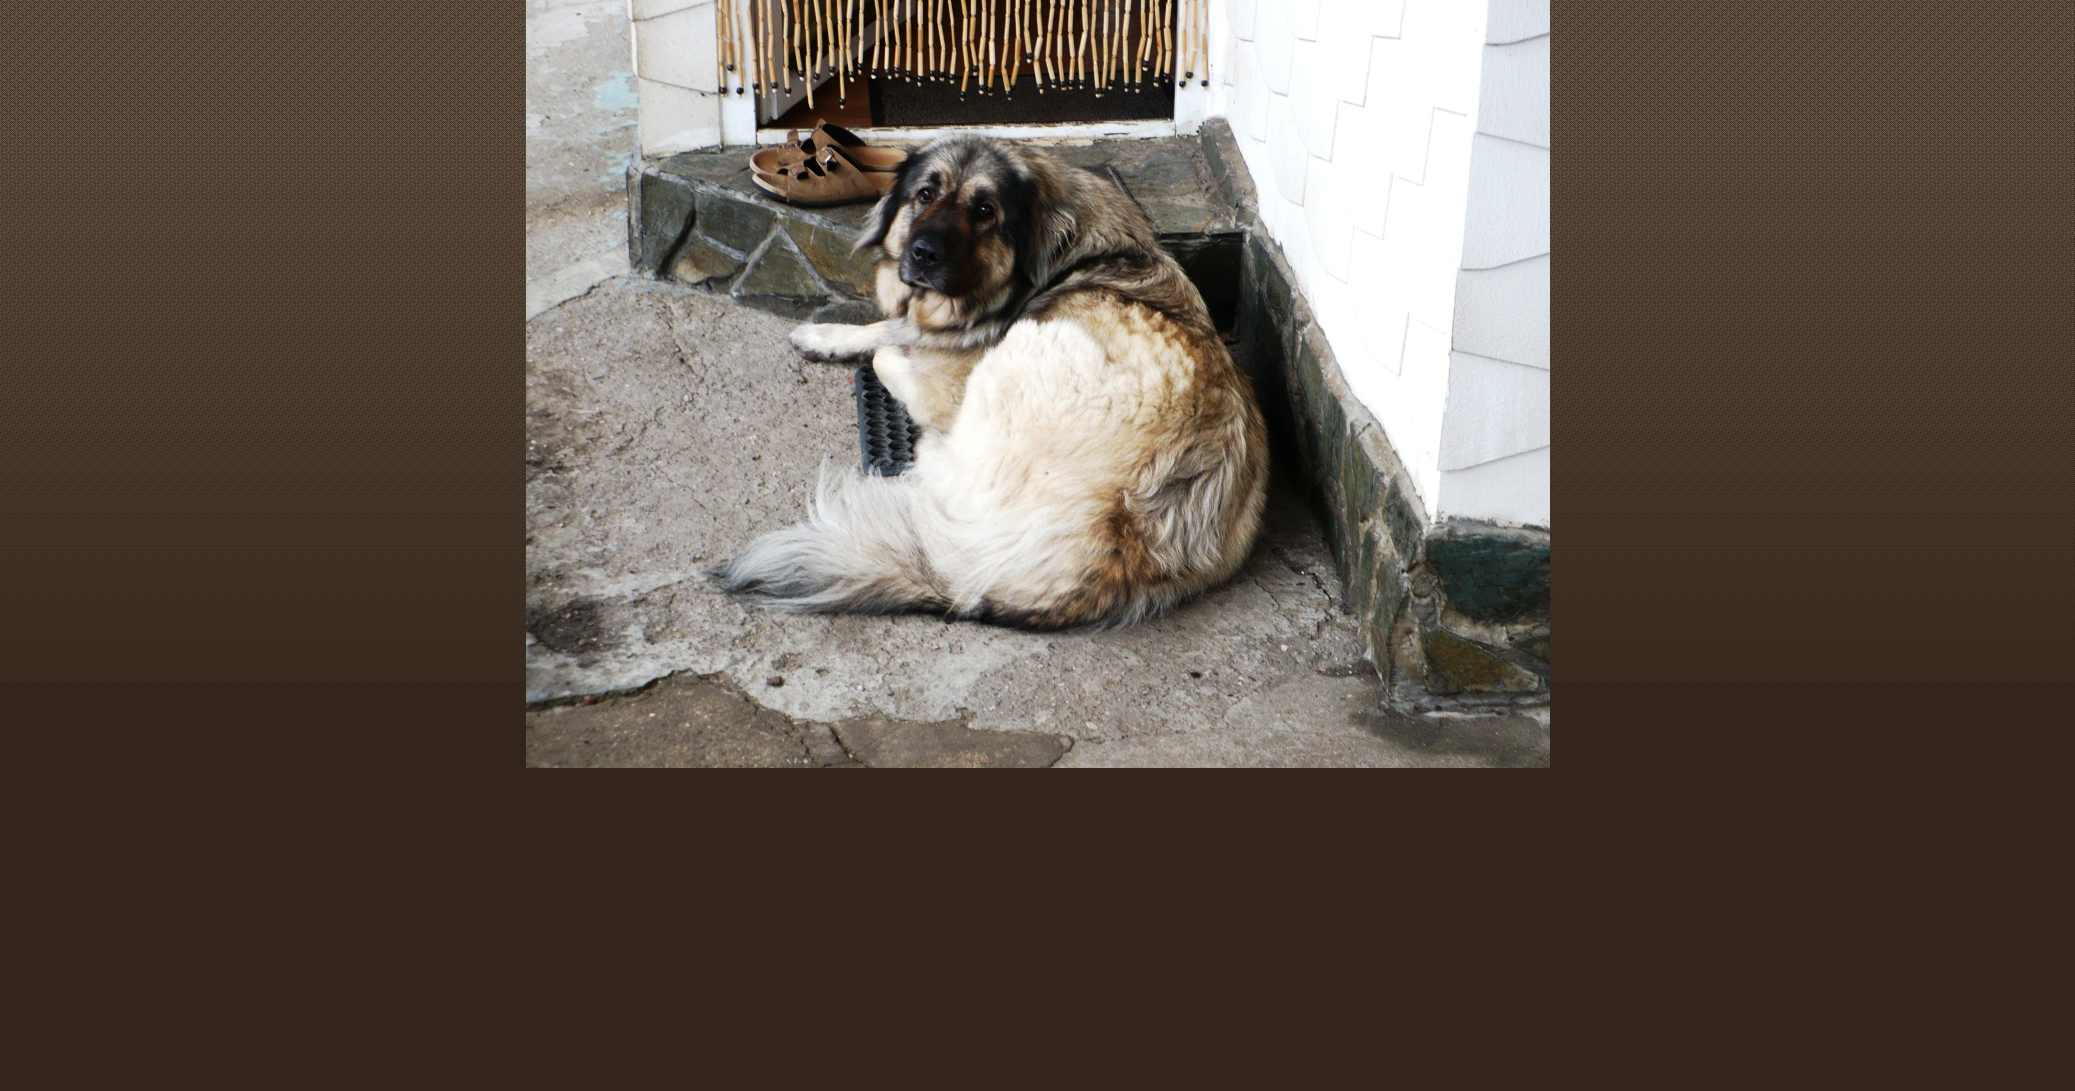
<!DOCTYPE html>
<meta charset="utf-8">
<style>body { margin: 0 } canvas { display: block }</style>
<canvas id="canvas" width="2075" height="1091"></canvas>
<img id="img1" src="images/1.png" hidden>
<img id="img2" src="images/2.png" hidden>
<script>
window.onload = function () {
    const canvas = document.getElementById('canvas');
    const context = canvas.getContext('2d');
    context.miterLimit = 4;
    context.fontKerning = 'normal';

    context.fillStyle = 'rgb(51, 37, 27)';
    context.fillRect(0, 0, 2075, 1091);
    context.drawImage(document.getElementById('img1'), 0, 0, 2075, 682);
    context.drawImage(document.getElementById('img2'), 526, 0, 1024, 768);
};
</script>
